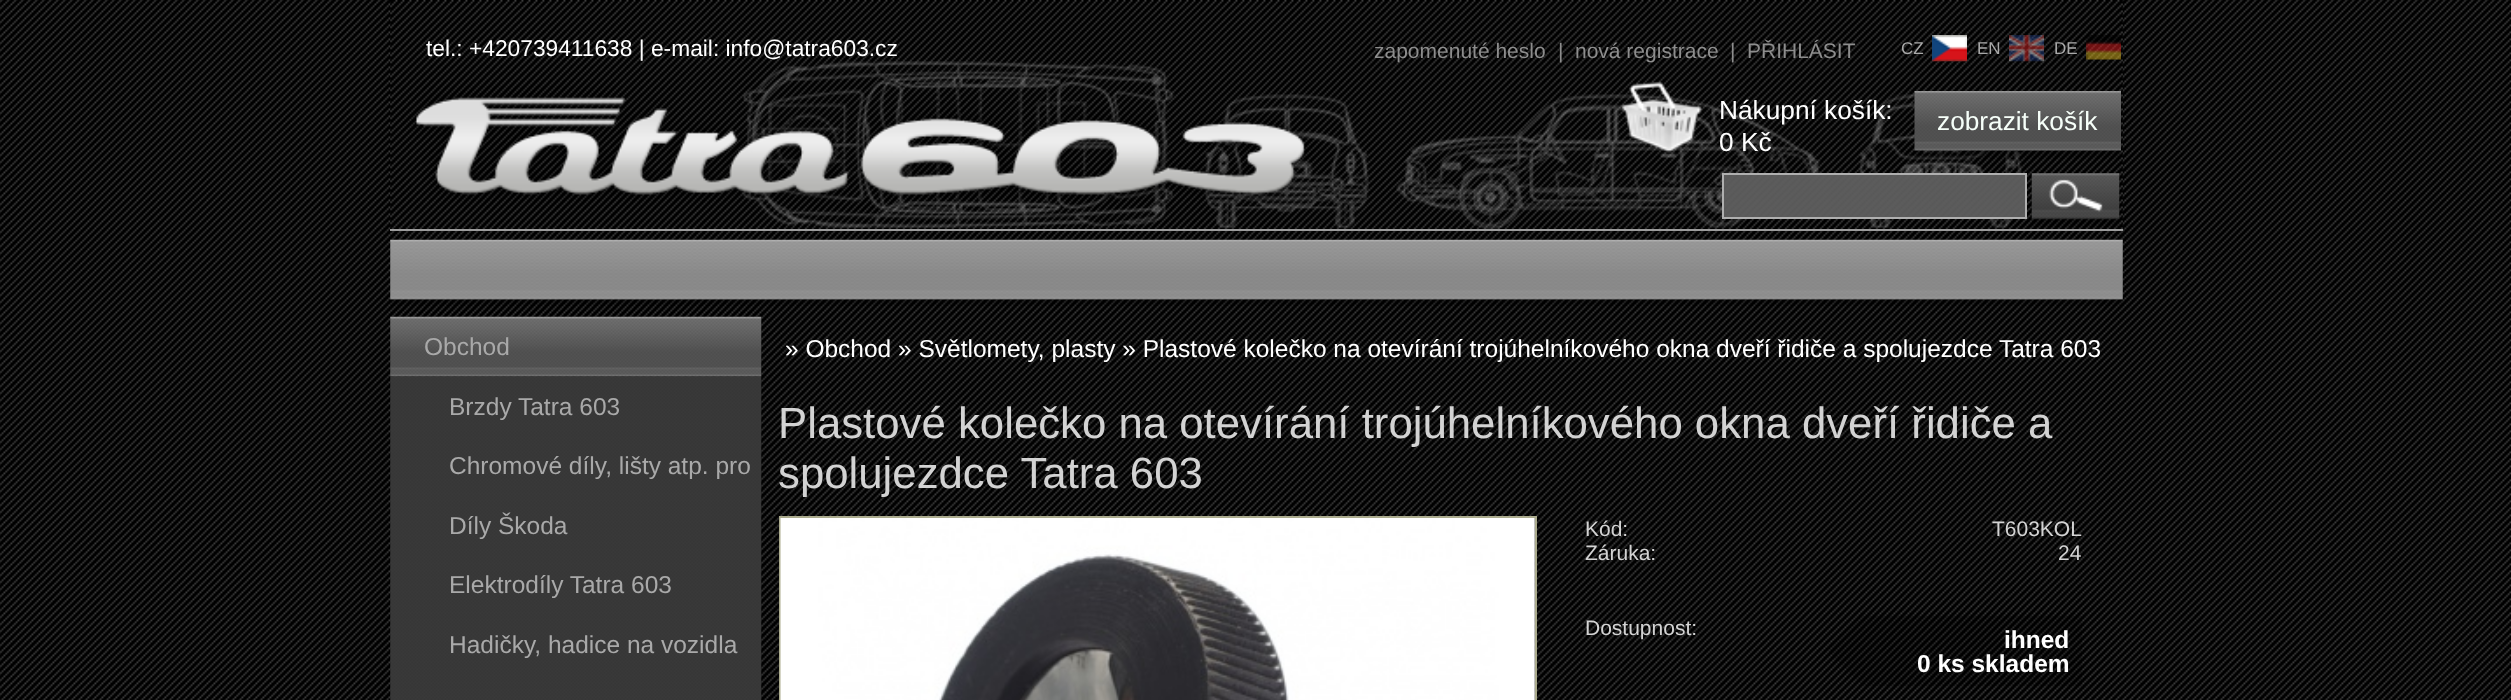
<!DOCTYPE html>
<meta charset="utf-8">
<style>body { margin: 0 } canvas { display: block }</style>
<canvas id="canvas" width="2511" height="700"></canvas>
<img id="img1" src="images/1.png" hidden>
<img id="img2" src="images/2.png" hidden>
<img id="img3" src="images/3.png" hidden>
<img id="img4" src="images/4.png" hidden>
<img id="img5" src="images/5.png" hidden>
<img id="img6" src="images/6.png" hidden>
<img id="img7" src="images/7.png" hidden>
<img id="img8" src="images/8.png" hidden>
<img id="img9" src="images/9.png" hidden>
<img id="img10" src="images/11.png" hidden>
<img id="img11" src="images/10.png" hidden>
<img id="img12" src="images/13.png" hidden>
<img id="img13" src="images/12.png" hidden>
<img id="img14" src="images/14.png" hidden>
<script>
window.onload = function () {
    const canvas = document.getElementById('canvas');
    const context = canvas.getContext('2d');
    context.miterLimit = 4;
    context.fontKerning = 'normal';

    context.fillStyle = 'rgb(255, 255, 255)';
    context.fillRect(0, 0, 2511, 700);
    context.drawImage(document.getElementById('img1'), 0, 0, 2511, 700);
    context.drawImage(document.getElementById('img2'), 390, 0, 1733, 229);
    context.fillStyle = 'rgb(156, 156, 156)';
    context.fillRect(390, 229, 1733, 2);
    context.drawImage(document.getElementById('img3'), 1932, 35, 35, 27);
    context.drawImage(document.getElementById('img4'), 2009, 35, 35, 27);
    context.drawImage(document.getElementById('img5'), 2086, 35, 35, 25);
    context.drawImage(document.getElementById('img6'), 1914, 91, 207, 68);
    context.drawImage(document.getElementById('img7'), 1724, 175, 301, 42);
    context.strokeStyle = 'rgb(175, 175, 175)';
    context.lineWidth = 2;
    context.strokeRect(1723, 174, 303, 44);
    context.drawImage(document.getElementById('img8'), 2031, 173, 89, 54);
    context.drawImage(document.getElementById('img9'), 390, 239, 1733, 67);
    context.drawImage(document.getElementById('img10'), 390, 376, 372, 324);
    context.drawImage(document.getElementById('img11'), 390, 316, 372, 61);
    context.drawImage(document.getElementById('img12'), 1534, 518, 1, 5);
    context.strokeStyle = 'rgb(171, 171, 141)';
    context.strokeRect(780, 517, 756, 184);
    context.drawImage(document.getElementById('img13'), 780, 518, 755, 182);
    context.drawImage(document.getElementById('img14'), 1829, 616, 253, 70);
    context.font = '22.75px Liberation Sans';
    context.fillStyle = 'rgb(255, 255, 255)';
    context.fillText('tel.: +420739411638 | e-mail: info@tatra603.cz', 426, 56);
    context.font = '21px Liberation Sans';
    context.fillStyle = 'rgb(141, 141, 141)';
    context.fillText('zapomenuté heslo', 1374, 58);
    context.fillText('|', 1558, 58);
    context.fillText('nová registrace', 1575, 58);
    context.fillText('|', 1730, 58);
    context.fillText('PŘIHLÁSIT', 1747, 58);
    context.font = '17px Liberation Sans';
    context.fillStyle = 'rgb(169, 169, 169)';
    context.fillText('CZ', 1901, 54);
    context.fillText('EN', 1977, 54);
    context.fillText('DE', 2054, 54);
    context.font = '26.25px Liberation Sans';
    context.fillStyle = 'rgb(255, 255, 255)';
    context.fillText('Nákupní košík:', 1719, 119);
    context.fillText('0 Kč', 1719, 151);
    context.fillStyle = 'rgb(246, 255, 249)';
    context.fillText('zobrazit košík', 1937, 130);
    context.font = '24.5px Liberation Sans';
    context.fillStyle = 'rgb(169, 169, 169)';
    context.fillText('Obchod', 424, 355);
    context.fillText('Brzdy Tatra 603', 449, 415);
    context.fillText('Chromové díly, lišty atp. pro', 449, 474);
    context.fillText('Díly Škoda', 449, 534);
    context.fillText('Elektrodíly Tatra 603', 449, 593);
    context.fillText('Hadičky, hadice na vozidla', 449, 653);
    context.fillStyle = 'rgb(255, 255, 255)';
    context.fillText('» Obchod » Světlomety, plasty » Plastové kolečko na otevírání trojúhelníkového okna dveří řidiče a spolujezdce Tatra 603', 785, 357);
    context.font = '43.75px Liberation Sans';
    context.fillStyle = 'rgb(211, 211, 211)';
    context.fillText('Plastové kolečko na otevírání trojúhelníkového okna dveří řidiče a', 778, 438);
    context.fillText('spolujezdce Tatra 603', 778, 488);
    context.font = '21px Liberation Sans';
    context.fillText('Kód:', 1585, 536);
    context.fillText('T603KOL', 1992, 536);
    context.fillText('Záruka:', 1585, 560);
    context.fillText('24', 2058, 560);
    context.fillText('Dostupnost:', 1585, 635);
    context.font = 'bold 24.5px Liberation Sans';
    context.fillStyle = 'rgb(255, 255, 255)';
    context.fillText('ihned', 2004, 648);
    context.fillText('0 ks skladem', 1917, 672);
};
</script>
